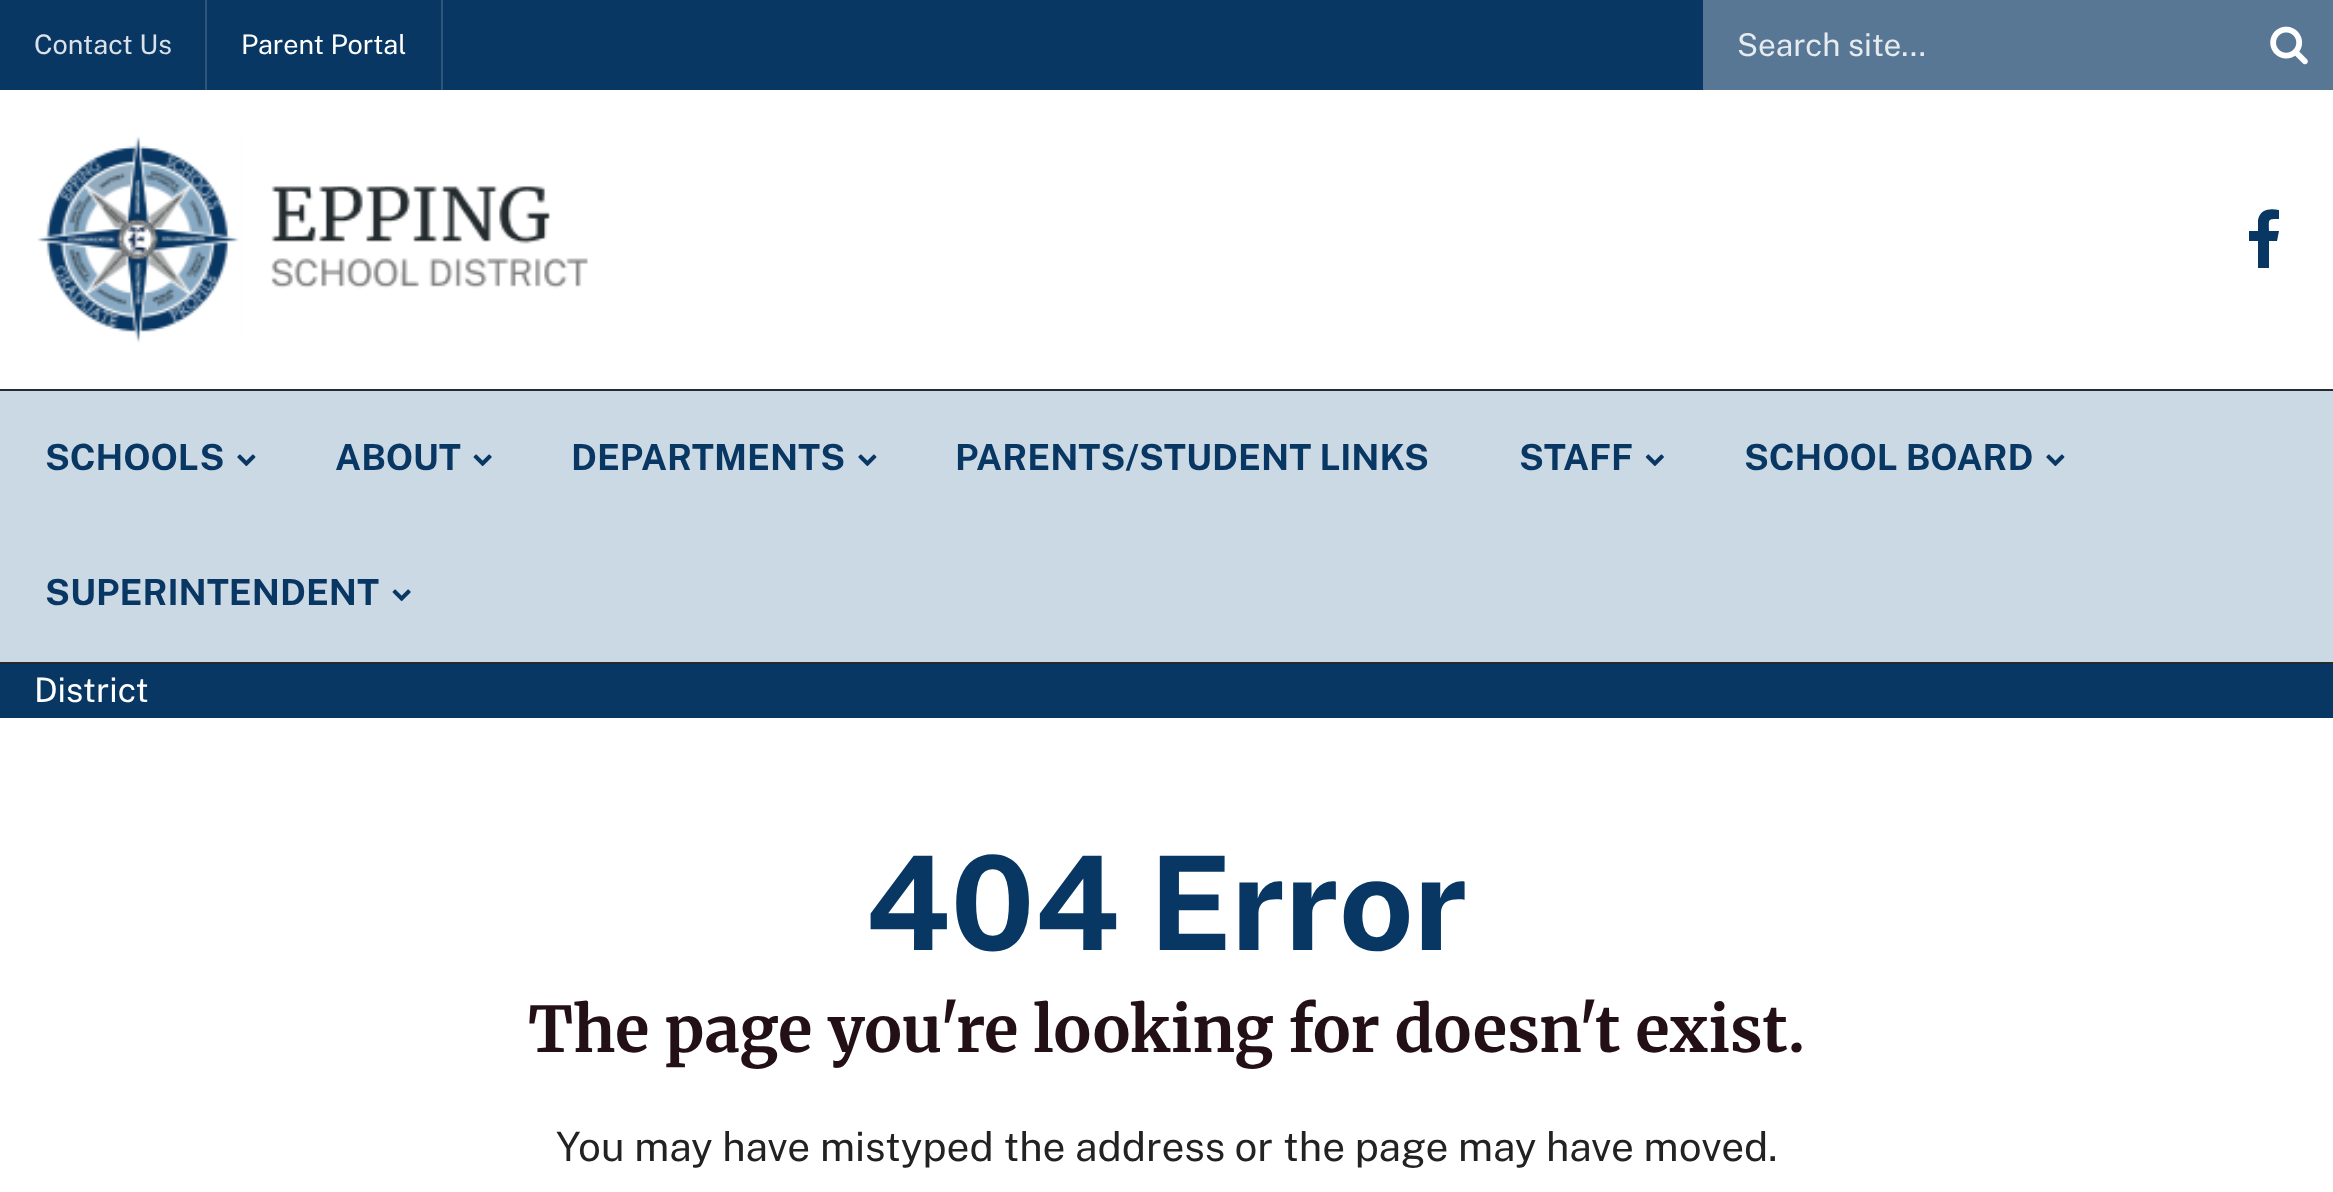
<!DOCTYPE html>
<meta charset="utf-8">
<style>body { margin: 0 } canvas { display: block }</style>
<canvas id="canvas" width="2333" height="1192"></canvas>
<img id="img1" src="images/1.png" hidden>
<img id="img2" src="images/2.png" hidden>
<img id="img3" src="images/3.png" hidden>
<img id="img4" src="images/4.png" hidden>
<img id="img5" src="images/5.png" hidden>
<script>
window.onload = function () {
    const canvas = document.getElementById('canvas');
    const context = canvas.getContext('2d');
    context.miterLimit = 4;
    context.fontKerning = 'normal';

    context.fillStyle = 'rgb(255, 255, 255)';
    context.fillRect(0, 0, 2333, 1192);
    context.fillStyle = 'rgb(37, 44, 47)';
    context.fillRect(0, 662, 2333, 2);
    context.fillStyle = 'rgb(9, 55, 99)';
    context.fillRect(0, 0, 1703, 90);
    context.fillStyle = 'rgb(46, 85, 122)';
    context.fillRect(205, 0, 2, 90);
    context.fillRect(441, 0, 2, 90);
    context.fillStyle = 'rgb(88, 119, 149)';
    context.fillRect(1703, 0, 630, 90);
    context.drawImage(document.getElementById('img1'), 2270, 26, 38, 39);
    context.drawImage(document.getElementById('img2'), 37, 136, 551, 207);
    context.fillStyle = 'rgb(9, 55, 99)';
    context.beginPath();
    context.moveTo(2279, 210);
    context.lineTo(2279, 219);
    context.bezierCurveTo(2267, 219, 2269, 219, 2269, 231);
    context.lineTo(2279, 231);
    context.lineTo(2277, 241);
    context.lineTo(2269, 241);
    context.lineTo(2269, 268);
    context.lineTo(2258, 268);
    context.lineTo(2258, 241);
    context.lineTo(2249, 241);
    context.lineTo(2249, 231);
    context.lineTo(2258, 231);
    context.lineTo(2258, 220);
    context.bezierCurveTo(2260, 209, 2270, 208, 2279, 210);
    context.closePath();
    context.fill();
    context.fillStyle = 'rgb(203, 217, 228)';
    context.fillRect(0, 391, 2333, 271);
    context.fillStyle = 'rgb(37, 44, 47)';
    context.fillRect(0, 389, 2333, 2);
    context.drawImage(document.getElementById('img3'), 237, 454, 19, 13);
    context.drawImage(document.getElementById('img4'), 473, 454, 19, 13);
    context.drawImage(document.getElementById('img3'), 858, 454, 19, 13);
    context.drawImage(document.getElementById('img5'), 1645, 454, 19, 13);
    context.drawImage(document.getElementById('img3'), 2046, 454, 19, 13);
    context.drawImage(document.getElementById('img4'), 392, 589, 19, 13);
    context.fillStyle = 'rgb(9, 55, 99)';
    context.fillRect(0, 664, 2333, 54);
    context.font = '27px Public Sans';
    context.fillStyle = 'rgb(218, 225, 232)';
    context.fillText('Contact Us', 34, 54);
    context.fillStyle = 'rgb(255, 255, 255)';
    context.fillText('Parent Portal', 241, 54);
    context.font = '31.5px Public Sans';
    context.fillStyle = 'rgb(230, 235, 239)';
    context.fillText('Search site...', 1737, 56);
    context.font = 'bold 36px Public Sans';
    context.fillStyle = 'rgb(9, 55, 99)';
    context.fillText('SCHOOLS', 45, 470);
    context.fillText('ABOUT', 335, 470);
    context.fillText('DEPARTMENTS', 571, 470);
    context.fillText('PARENTS/STUDENT LINKS', 955, 470);
    context.fillText('STAFF', 1519, 470);
    context.fillText('SCHOOL BOARD', 1744, 470);
    context.fillText('SUPERINTENDENT', 45, 605);
    context.font = '34px Public Sans';
    context.fillStyle = 'rgb(255, 255, 255)';
    context.fillText('District', 34, 702);
    context.font = 'bold 130.5px Public Sans';
    context.fillStyle = 'rgb(9, 55, 99)';
    context.fillText('404 Error', 865, 950);
    context.font = 'bold 63px Merriweather';
    context.fillStyle = 'rgb(35, 16, 23)';
    context.fillText('The page you\'re looking for doesn\'t exist.', 528, 1052);
    context.font = '40.5px Public Sans';
    context.fillStyle = 'rgb(34, 34, 34)';
    context.fillText('You may have mistyped the address or the page may have moved.', 556, 1161);
};
</script>
